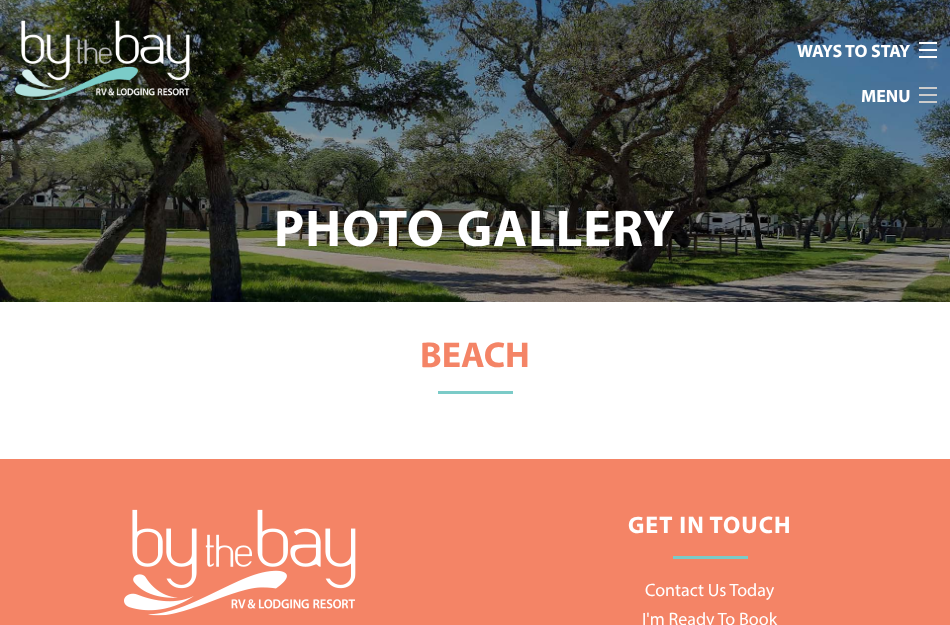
<!DOCTYPE html>
<meta charset="utf-8">
<style>body { margin: 0 } canvas { display: block }</style>
<canvas id="canvas" width="950" height="625"></canvas>
<img id="img1" src="images/2.png" hidden>
<img id="img2" src="images/1.png" hidden>
<img id="img3" src="images/3.png" hidden>
<script>
window.onload = function () {
    const canvas = document.getElementById('canvas');
    const context = canvas.getContext('2d');
    context.miterLimit = 4;
    context.fontKerning = 'normal';

    context.fillStyle = 'rgb(255, 255, 255)';
    context.fillRect(0, 0, 950, 625);
    context.drawImage(document.getElementById('img1'), 0, 0, 950, 302);
    context.drawImage(document.getElementById('img2'), 15, 20, 175, 80);
    context.fillRect(919, 56, 18, 2);
    context.fillRect(919, 49, 18, 2);
    context.fillRect(919, 42, 18, 2);
    context.fillStyle = 'rgb(204, 204, 204)';
    context.fillRect(919, 101, 18, 2);
    context.fillRect(919, 94, 18, 2);
    context.fillRect(919, 87, 18, 2);
    context.fillStyle = 'rgb(123, 203, 200)';
    context.fillRect(438, 391, 75, 3);
    context.fillStyle = 'rgb(244, 132, 102)';
    context.fillRect(0, 459, 950, 166);
    context.drawImage(document.getElementById('img3'), 124, 509, 232, 107);
    context.fillStyle = 'rgb(123, 203, 200)';
    context.fillRect(673, 556, 75, 3);
    context.font = 'bold 18px Myriad';
    context.fillStyle = 'rgb(255, 255, 255)';
    context.fillText('WAYS TO STAY', 797, 57);
    context.fillText('MENU', 861, 102);
    context.letterSpacing = '1px';
    context.font = 'bold 52px Myriad';
    context.fillText('PHOTO GALLERY', 274, 246);
    context.letterSpacing = '0px';
    context.font = 'bold 36px Myriad';
    context.fillStyle = 'rgb(244, 132, 102)';
    context.fillText('BEACH', 420, 367);
    context.letterSpacing = '1px';
    context.font = 'bold 24px Myriad';
    context.fillStyle = 'rgb(255, 255, 255)';
    context.fillText('GET IN TOUCH', 628, 533);
    context.letterSpacing = '0px';
    context.font = '18px Myriad';
    context.fillText('Contact Us Today', 645, 596);
    context.fillText('I\'m Ready To Book', 642, 625);
};
</script>
